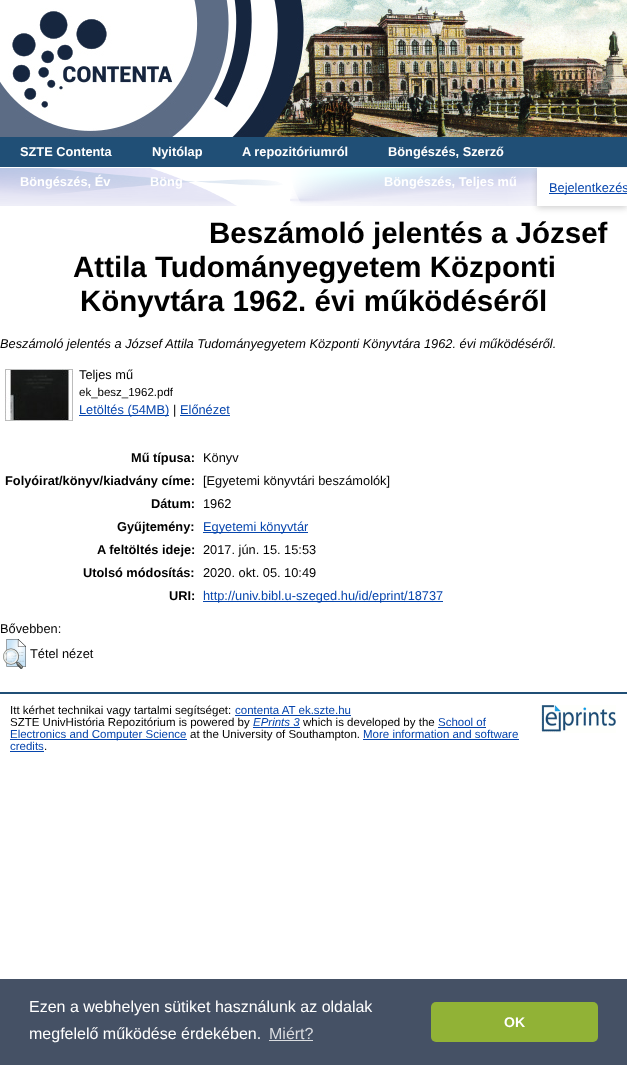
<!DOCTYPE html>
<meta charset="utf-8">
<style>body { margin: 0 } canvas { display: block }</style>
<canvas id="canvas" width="627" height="1065"></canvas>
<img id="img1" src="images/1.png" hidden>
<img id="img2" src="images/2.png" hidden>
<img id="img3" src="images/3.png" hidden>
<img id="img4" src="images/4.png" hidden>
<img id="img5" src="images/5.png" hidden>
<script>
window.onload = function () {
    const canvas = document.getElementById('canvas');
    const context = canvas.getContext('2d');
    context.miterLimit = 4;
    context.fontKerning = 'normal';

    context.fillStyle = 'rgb(255, 255, 255)';
    context.fillRect(0, 0, 627, 1065);
    context.drawImage(document.getElementById('img1'), 0, 168, 537, 38);
    context.drawImage(document.getElementById('img2'), 0, 0, 627, 137);
    context.fillStyle = 'rgb(32, 79, 118)';
    context.fillRect(0, 137, 627, 30);
    context.fillStyle = 'rgba(100, 100, 100, 0.3)';
    context.filter = 'blur(3px)';
    context.beginPath();
    context.rect(537, 170, 90, 38);
    context.fill();
    context.filter = 'none';
    context.fillStyle = 'rgb(255, 255, 255)';
    context.fillRect(537, 168, 90, 38);
    context.fillStyle = 'rgb(6, 69, 173)';
    context.fillRect(549, 193, 78, 1);
    context.drawImage(document.getElementById('img3'), 5, 369, 68, 52);
    context.fillRect(79, 415, 90, 1);
    context.fillRect(180, 415, 50, 1);
    context.fillRect(203, 532, 105, 1);
    context.fillRect(203, 601, 240, 1);
    context.drawImage(document.getElementById('img4'), 3, 639, 23, 30);
    context.fillStyle = 'rgb(32, 79, 118)';
    context.fillRect(0, 692, 627, 2);
    context.fillStyle = 'rgb(6, 69, 173)';
    context.fillRect(235, 715, 116, 1);
    context.fillRect(253, 727, 47, 1);
    context.fillRect(438, 727, 48, 1);
    context.fillRect(10, 739, 177, 1);
    context.fillRect(363, 739, 156, 1);
    context.fillRect(10, 751, 34, 1);
    context.drawImage(document.getElementById('img5'), 540, 705, 76, 28);
    context.fillStyle = 'rgb(69, 81, 101)';
    context.fillRect(0, 979, 627, 86);
    context.fillStyle = 'rgb(218, 220, 224)';
    context.fillRect(269, 1040, 44, 1);
    context.fillStyle = 'rgb(145, 178, 54)';
    context.beginPath();
    context.roundRect(431, 1002, 167, 40, 5);
    context.fill();
    context.font = 'bold 12.8px Liberation Sans';
    context.fillStyle = 'rgb(255, 255, 255)';
    context.fillText('SZTE Contenta', 20, 156);
    context.fillText('Nyitólap', 152, 156);
    context.fillText('A repozitóriumról', 242, 156);
    context.fillText('Böngészés, Szerző', 388, 156);
    context.fillText('Böngészés, Év', 20, 186);
    context.fillText('Böng', 150, 186);
    context.fillText('Böngészés, Teljes mű', 384, 186);
    context.font = '12.8px Liberation Sans';
    context.fillStyle = 'rgb(6, 69, 173)';
    context.fillText('Bejelentkezés', 549, 192);
    context.font = 'bold 29.5px Liberation Sans';
    context.fillStyle = 'rgb(0, 0, 0)';
    context.fillText('Beszámoló jelentés a József', 209, 243);
    context.fillText('Attila Tudományegyetem Központi', 73, 277);
    context.fillText('Könyvtára 1962. évi működéséről', 80, 311);
    context.font = 'italic 12.8px Liberation Sans';
    context.fillText('Beszámoló jelentés a József Attila Tudományegyetem Központi Könyvtára 1962. évi működéséről.', 0, 348);
    context.font = '12.8px Liberation Sans';
    context.fillText('Teljes mű', 79, 379);
    context.font = '11.5px Liberation Sans';
    context.fillText('ek_besz_1962.pdf', 79, 396);
    context.font = '12.8px Liberation Sans';
    context.fillStyle = 'rgb(6, 69, 173)';
    context.fillText('Letöltés (54MB)', 79, 414);
    context.fillStyle = 'rgb(0, 0, 0)';
    context.fillText('|', 173, 414);
    context.fillStyle = 'rgb(6, 69, 173)';
    context.fillText('Előnézet', 180, 414);
    context.font = 'bold 12.8px Liberation Sans';
    context.fillStyle = 'rgb(0, 0, 0)';
    context.fillText('Mű típusa:', 131, 462);
    context.font = '12.8px Liberation Sans';
    context.fillText('Könyv', 203, 462);
    context.font = 'bold 12.8px Liberation Sans';
    context.fillText('Folyóirat/könyv/kiadvány címe:', 5, 485);
    context.font = '12.8px Liberation Sans';
    context.fillText('[Egyetemi könyvtári beszámolók]', 203, 485);
    context.font = 'bold 12.8px Liberation Sans';
    context.fillText('Dátum:', 151, 508);
    context.font = '12.8px Liberation Sans';
    context.fillText('1962', 203, 508);
    context.font = 'bold 12.8px Liberation Sans';
    context.fillText('Gyűjtemény:', 117, 531);
    context.font = '12.8px Liberation Sans';
    context.fillStyle = 'rgb(6, 69, 173)';
    context.fillText('Egyetemi könyvtár', 203, 531);
    context.font = 'bold 12.8px Liberation Sans';
    context.fillStyle = 'rgb(0, 0, 0)';
    context.fillText('A feltöltés ideje:', 97, 554);
    context.font = '12.8px Liberation Sans';
    context.fillText('2017. jún. 15. 15:53', 203, 554);
    context.font = 'bold 12.8px Liberation Sans';
    context.fillText('Utolsó módosítás:', 83, 577);
    context.font = '12.8px Liberation Sans';
    context.fillText('2020. okt. 05. 10:49', 203, 577);
    context.font = 'bold 12.8px Liberation Sans';
    context.fillText('URI:', 169, 600);
    context.font = '12.8px Liberation Sans';
    context.fillStyle = 'rgb(6, 69, 173)';
    context.fillText('http://univ.bibl.u-szeged.hu/id/eprint/18737', 203, 600);
    context.fillStyle = 'rgb(0, 0, 0)';
    context.fillText('Bővebben:', 0, 633);
    context.fillText('Tétel nézet', 30, 658);
    context.font = '11.5px Liberation Sans';
    context.fillText('Itt kérhet technikai vagy tartalmi segítséget:', 10, 714);
    context.fillStyle = 'rgb(6, 69, 173)';
    context.fillText('contenta AT ek.szte.hu', 235, 714);
    context.fillStyle = 'rgb(0, 0, 0)';
    context.fillText('SZTE UnivHistória Repozitórium is powered by', 10, 726);
    context.font = 'italic 11.5px Liberation Sans';
    context.fillStyle = 'rgb(6, 69, 173)';
    context.fillText('EPrints 3', 253, 726);
    context.font = '11.5px Liberation Sans';
    context.fillStyle = 'rgb(0, 0, 0)';
    context.fillText('which is developed by the', 303, 726);
    context.fillStyle = 'rgb(6, 69, 173)';
    context.fillText('School of', 438, 726);
    context.fillText('Electronics and Computer Science', 10, 738);
    context.fillStyle = 'rgb(0, 0, 0)';
    context.fillText('at the University of Southampton.', 190, 738);
    context.fillStyle = 'rgb(6, 69, 173)';
    context.fillText('More information and software', 363, 738);
    context.fillText('credits', 10, 750);
    context.fillStyle = 'rgb(0, 0, 0)';
    context.fillText('.', 44, 750);
    context.font = '16px Liberation Sans';
    context.fillStyle = 'rgb(255, 255, 255)';
    context.fillText('Ezen a webhelyen sütiket használunk az oldalak', 29, 1012);
    context.fillText('megfelelő működése érdekében.', 29, 1039);
    context.fillStyle = 'rgb(218, 220, 224)';
    context.fillText('Miért?', 269, 1039);
    context.font = 'bold 14px Liberation Sans';
    context.fillStyle = 'rgb(255, 255, 255)';
    context.fillText('OK', 504, 1027);
};
</script>
